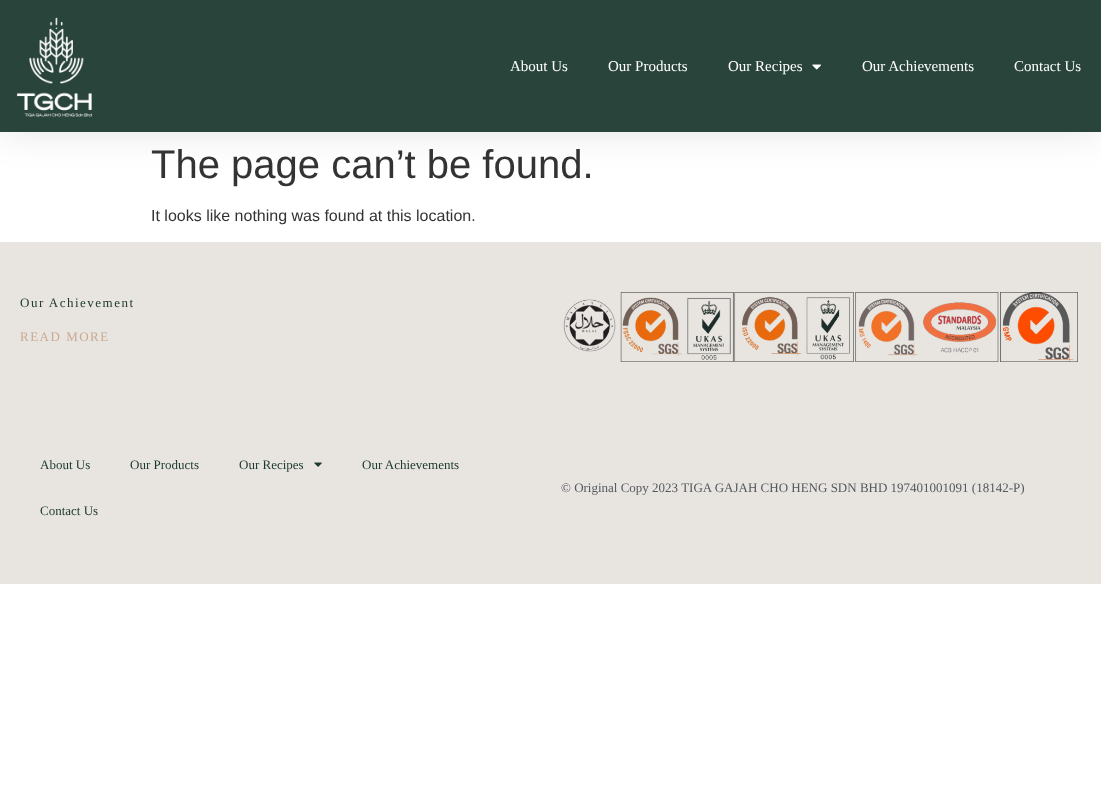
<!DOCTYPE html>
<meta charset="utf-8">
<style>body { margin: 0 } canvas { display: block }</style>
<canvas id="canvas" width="1101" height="785"></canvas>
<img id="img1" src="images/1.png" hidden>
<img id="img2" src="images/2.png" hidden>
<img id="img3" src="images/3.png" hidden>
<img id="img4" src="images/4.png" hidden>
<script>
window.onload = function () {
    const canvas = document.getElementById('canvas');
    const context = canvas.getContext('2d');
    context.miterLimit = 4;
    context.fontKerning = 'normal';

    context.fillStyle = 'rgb(255, 255, 255)';
    context.fillRect(0, 0, 1101, 785);
    context.fillStyle = 'rgba(0, 0, 0, 0.1)';
    context.filter = 'blur(19px)';
    context.beginPath();
    context.rect(0, 0, 1101, 132);
    context.fill();
    context.filter = 'none';
    context.fillStyle = 'rgb(41, 68, 59)';
    context.fillRect(0, 0, 1101, 132);
    context.drawImage(document.getElementById('img1'), 16, 17, 76, 100);
    context.drawImage(document.getElementById('img2'), 812, 64, 9, 6);
    context.fillStyle = 'rgb(232, 228, 224)';
    context.fillRect(0, 242, 1101, 342);
    context.drawImage(document.getElementById('img3'), 563, 292, 515, 70);
    context.drawImage(document.getElementById('img4'), 314, 462, 8, 5);
    context.font = '15px Liberation Serif';
    context.fillStyle = 'rgb(255, 255, 255)';
    context.fillText('About Us', 510, 71);
    context.fillText('Our Products', 608, 71);
    context.fillText('Our Recipes', 728, 71);
    context.fillText('Our Achievements', 862, 71);
    context.fillText('Contact Us', 1014, 71);
    context.font = '40px Liberation Sans';
    context.fillStyle = 'rgb(51, 51, 51)';
    context.fillText('The page can’t be found.', 151, 178);
    context.font = '16px Liberation Sans';
    context.fillText('It looks like nothing was found at this location.', 151, 221);
    context.letterSpacing = '1.5px';
    context.font = '13px Liberation Serif';
    context.fillStyle = 'rgb(28, 57, 47)';
    context.fillText('Our Achievement', 20, 307);
    context.fillStyle = 'rgb(201, 170, 144)';
    context.fillText('READ MORE', 20, 341);
    context.letterSpacing = '0px';
    context.fillStyle = 'rgb(28, 57, 47)';
    context.fillText('About Us', 40, 469);
    context.fillText('Our Products', 130, 469);
    context.fillText('Our Recipes', 239, 469);
    context.fillText('Our Achievements', 362, 469);
    context.fillText('Contact Us', 40, 515);
    context.fillStyle = 'rgb(84, 89, 95)';
    context.fillText('© Original Copy 2023 TIGA GAJAH CHO HENG SDN BHD 197401001091 (18142-P)', 561, 492);
};
</script>
